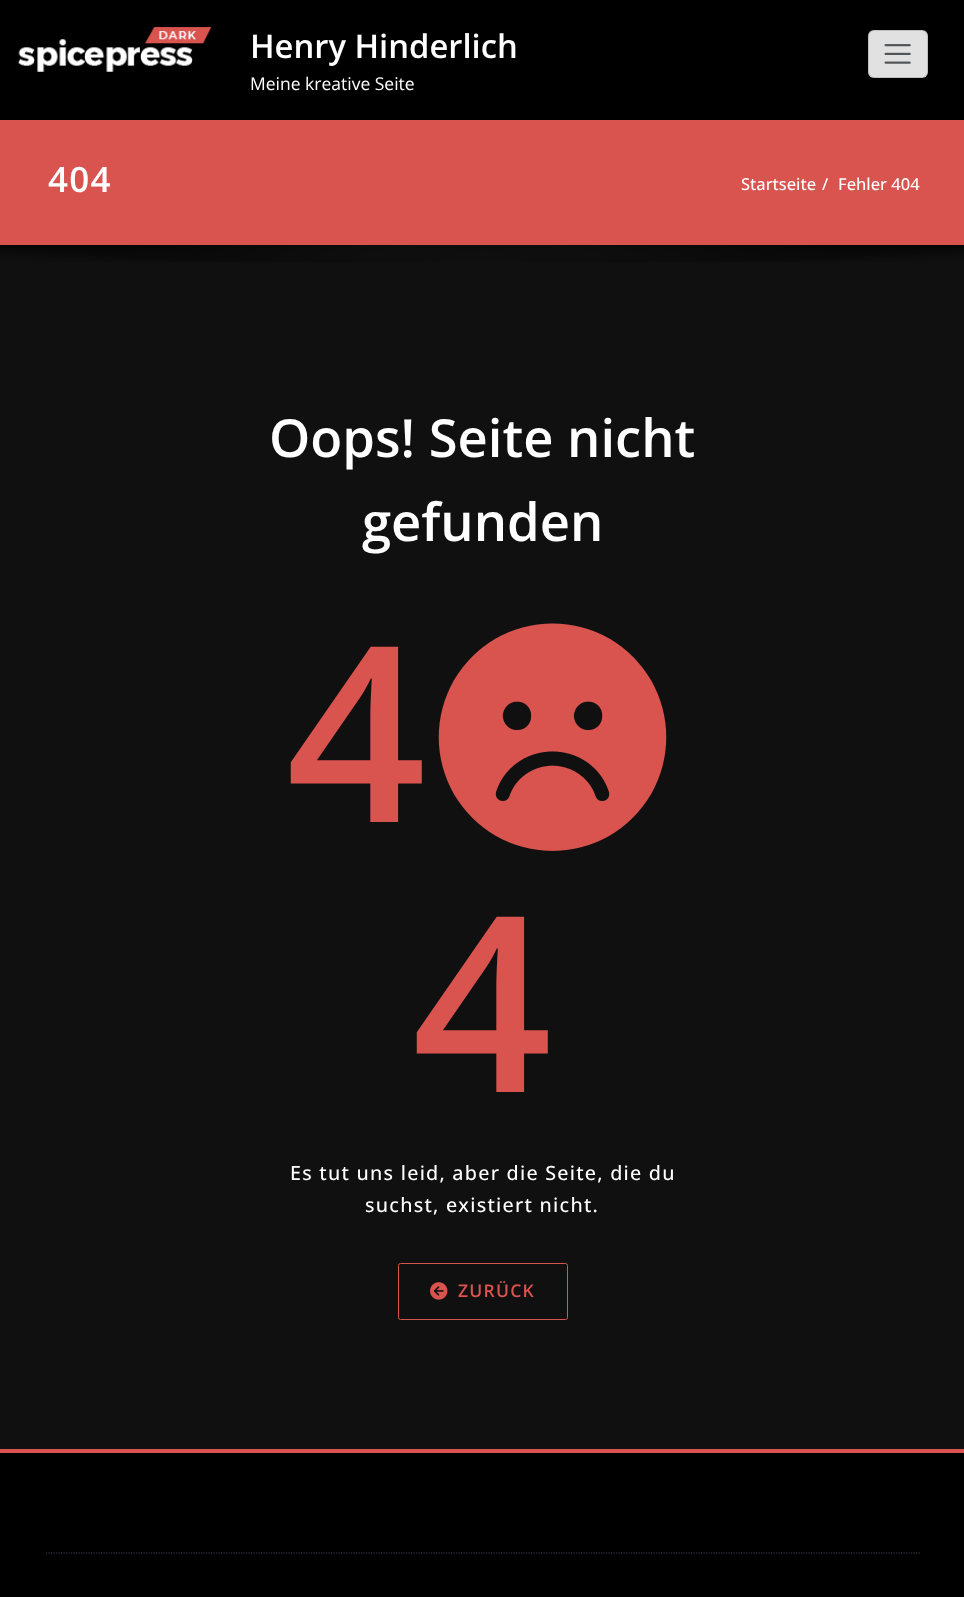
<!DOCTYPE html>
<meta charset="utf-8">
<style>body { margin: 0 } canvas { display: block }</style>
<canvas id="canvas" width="964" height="1597"></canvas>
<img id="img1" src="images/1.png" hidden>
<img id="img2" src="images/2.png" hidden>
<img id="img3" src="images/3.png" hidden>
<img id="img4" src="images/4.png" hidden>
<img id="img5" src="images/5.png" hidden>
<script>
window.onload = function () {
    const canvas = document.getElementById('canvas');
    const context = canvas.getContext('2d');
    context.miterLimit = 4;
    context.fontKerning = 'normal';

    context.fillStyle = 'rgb(0, 0, 0)';
    context.fillRect(0, 0, 964, 1597);
    context.drawImage(document.getElementById('img1'), 18, 27, 194, 45);
    context.fillStyle = 'rgb(225, 225, 225)';
    context.beginPath();
    context.roundRect(868, 30, 60, 48, 6);
    context.fill();
    context.beginPath();
    context.roundRect(868.5, 30.5, 59, 47, 5.5);
    context.strokeStyle = 'rgba(0, 0, 0, 0.15)';
    context.stroke();
    context.drawImage(document.getElementById('img2'), 884, 44, 27, 20);
    context.fillStyle = 'rgb(217, 83, 79)';
    context.fillRect(0, 120, 964, 125);
    context.fillStyle = 'rgb(16, 16, 16)';
    context.fillRect(0, 245, 964, 1204);
    context.drawImage(document.getElementById('img3'), 0, 245, 964, 17);
    context.drawImage(document.getElementById('img4'), 438, 623, 229, 228);
    context.beginPath();
    context.roundRect(398.5, 1263.5, 169, 56, 2);
    context.strokeStyle = 'rgb(217, 83, 79)';
    context.stroke();
    context.drawImage(document.getElementById('img5'), 430, 1282, 18, 18);
    context.fillStyle = 'rgb(217, 83, 79)';
    context.fillRect(0, 1449, 964, 4);
    context.beginPath();
    context.moveTo(46, 1553);
    context.lineTo(920, 1553);
    context.strokeStyle = 'rgb(64, 63, 78)';
    context.lineWidth = 1.2;
    context.setLineDash([1.25, 1.25]);
    context.stroke();
    context.font = '600 32.75px Open Sans';
    context.fillStyle = 'rgb(255, 255, 255)';
    context.fillText('Henry Hinderlich', 250, 58);
    context.font = '17.5px Open Sans';
    context.fillText('Meine kreative Seite', 250, 90);
    context.letterSpacing = '1.25px';
    context.font = '600 35px Open Sans';
    context.fillText('404', 48, 192);
    context.letterSpacing = '0px';
    context.font = '500 16.5px Open Sans';
    context.fillText('Startseite', 741, 190);
    context.fillText('/', 822, 190);
    context.fillText('Fehler 404', 838, 190);
    context.font = '600 52.5px Open Sans';
    context.fillText('Oops! Seite nicht', 269, 457);
    context.fillText('gefunden', 362, 541);
    context.font = '600 245px Open Sans';
    context.fillStyle = 'rgb(217, 83, 79)';
    context.fillText('4', 286, 822);
    context.fillText('4', 412, 1092);
    context.letterSpacing = '1.25px';
    context.font = '500 19.7px Open Sans';
    context.fillStyle = 'rgb(255, 255, 255)';
    context.fillText('Es tut uns leid, aber die Seite, die du', 290, 1180);
    context.fillText('suchst, existiert nicht.', 365, 1212);
    context.font = '600 17.5px Open Sans';
    context.fillStyle = 'rgb(217, 83, 79)';
    context.fillText('ZURÜCK', 458, 1297);
};
</script>
